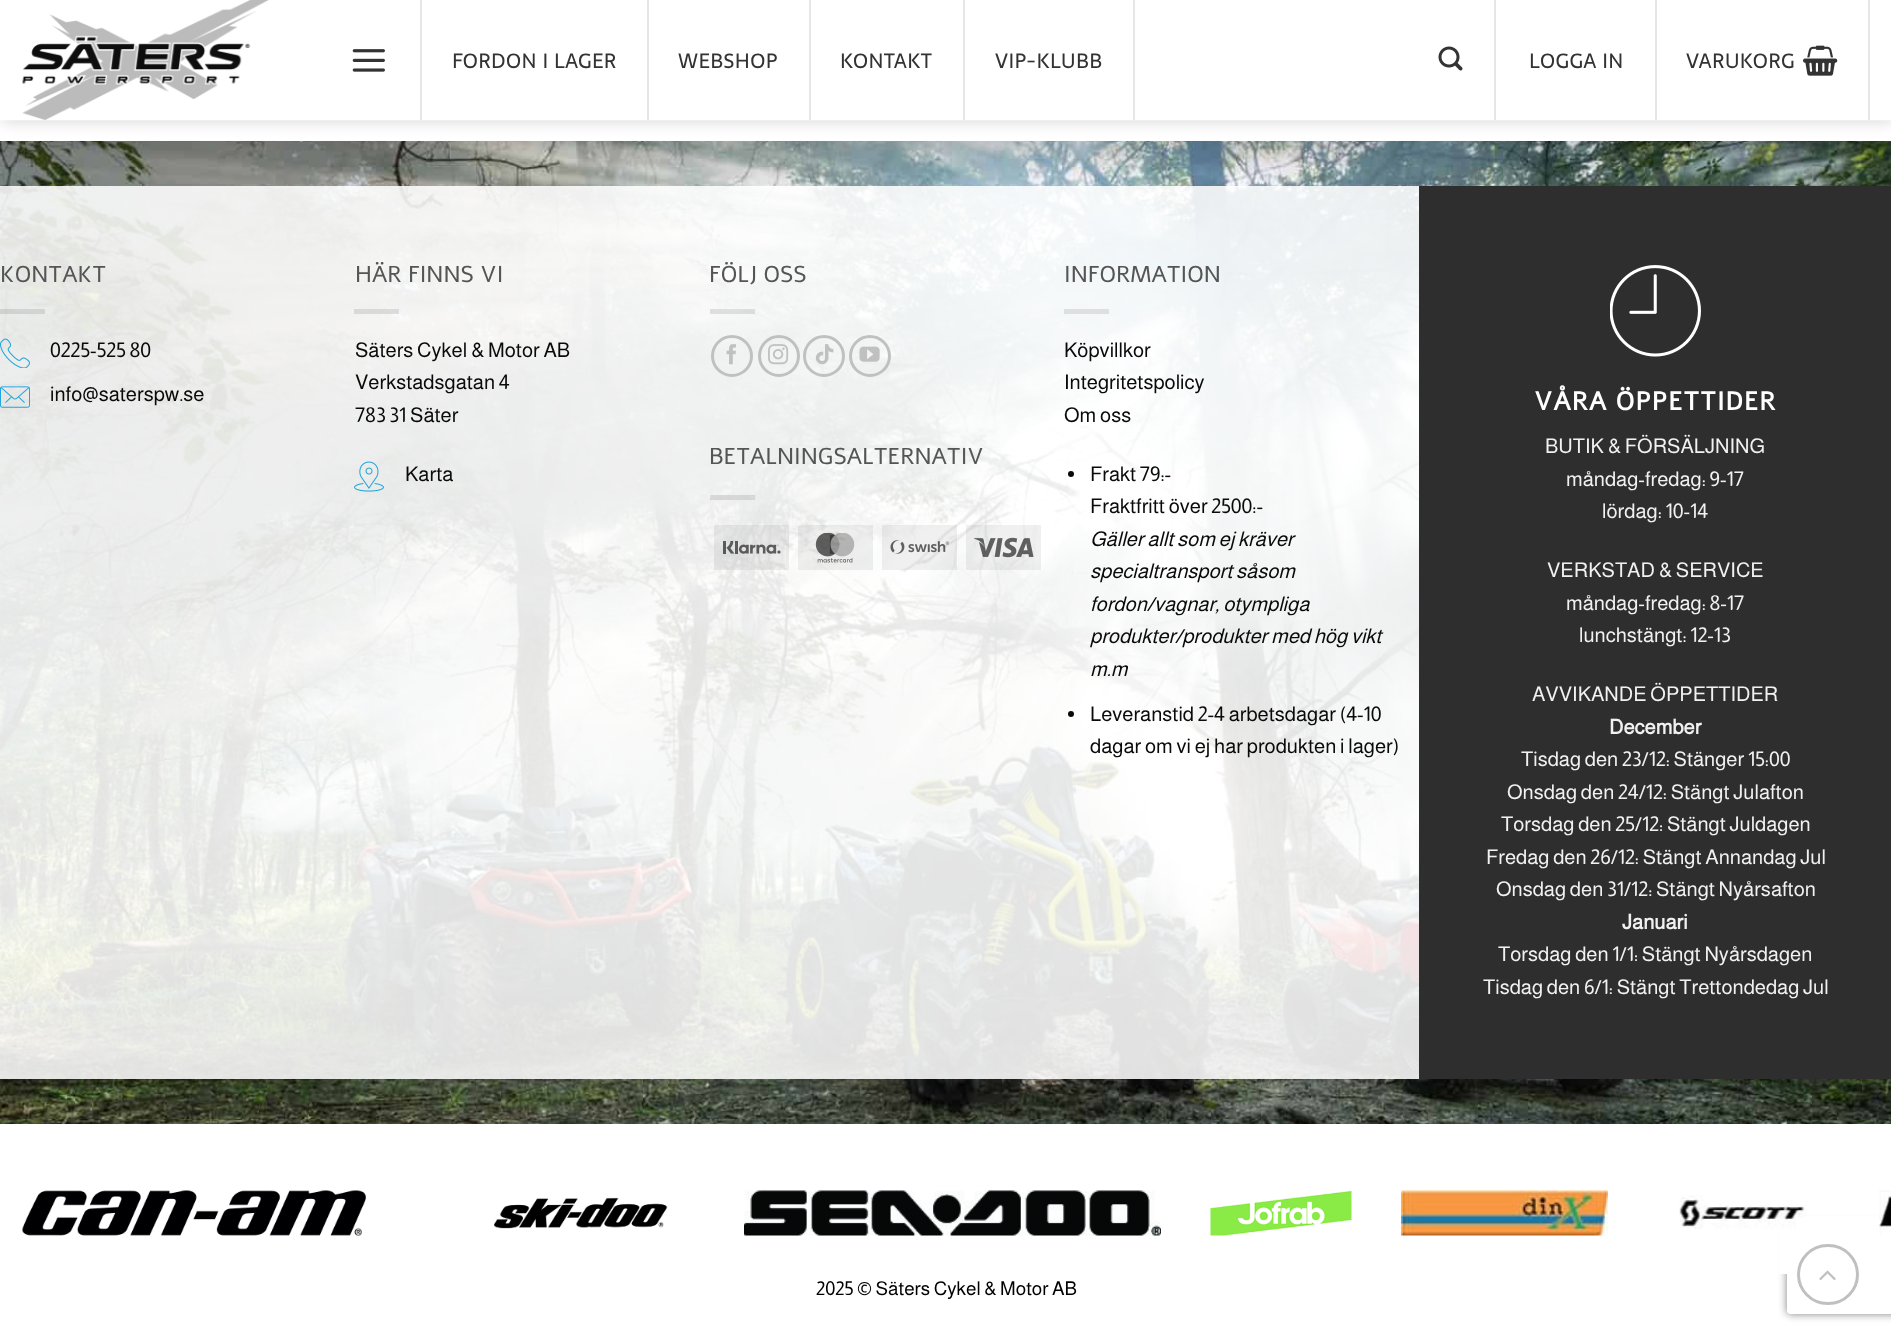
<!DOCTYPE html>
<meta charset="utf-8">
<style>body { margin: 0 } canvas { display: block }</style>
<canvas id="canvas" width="1891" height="1335"></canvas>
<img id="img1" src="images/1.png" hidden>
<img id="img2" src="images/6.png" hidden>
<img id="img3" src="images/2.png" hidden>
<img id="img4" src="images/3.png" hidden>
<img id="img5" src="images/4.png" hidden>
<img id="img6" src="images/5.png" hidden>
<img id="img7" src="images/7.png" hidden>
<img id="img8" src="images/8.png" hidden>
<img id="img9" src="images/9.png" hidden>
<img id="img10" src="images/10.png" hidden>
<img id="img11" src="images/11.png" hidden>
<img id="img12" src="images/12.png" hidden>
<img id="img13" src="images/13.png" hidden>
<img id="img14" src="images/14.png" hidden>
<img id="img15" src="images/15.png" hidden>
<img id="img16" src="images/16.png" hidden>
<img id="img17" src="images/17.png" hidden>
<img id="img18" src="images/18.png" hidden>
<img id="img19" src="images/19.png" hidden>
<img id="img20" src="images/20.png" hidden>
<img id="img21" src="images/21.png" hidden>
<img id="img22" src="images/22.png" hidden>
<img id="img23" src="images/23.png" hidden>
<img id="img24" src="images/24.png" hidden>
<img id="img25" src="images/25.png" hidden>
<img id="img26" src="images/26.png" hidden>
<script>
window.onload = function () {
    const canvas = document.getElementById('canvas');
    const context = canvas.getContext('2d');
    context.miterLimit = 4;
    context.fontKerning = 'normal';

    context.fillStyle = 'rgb(255, 255, 255)';
    context.fillRect(0, 0, 1891, 1335);
    context.drawImage(document.getElementById('img1'), 0, 186, 1891, 938);
    context.drawImage(document.getElementById('img2'), 0, 141, 1891, 45);
    context.fillStyle = 'rgba(0, 0, 0, 0.15)';
    context.filter = 'blur(7.5px)';
    context.beginPath();
    context.rect(2, 2, 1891, 120);
    context.fill();
    context.filter = 'none';
    context.fillStyle = 'rgb(255, 255, 255)';
    context.fillRect(0, 0, 1891, 120);
    context.fillStyle = 'rgba(255, 255, 255, 0.3)';
    context.fillRect(0, 120, 1891, 1);
    context.drawImage(document.getElementById('img3'), 22, 0, 247, 120);
    context.fillStyle = 'rgb(230, 230, 230)';
    context.fillRect(420, 0, 2, 120);
    context.drawImage(document.getElementById('img4'), 352, 49, 33, 23);
    context.fillRect(647, 0, 2, 120);
    context.fillRect(809, 0, 2, 120);
    context.fillRect(963, 0, 2, 120);
    context.fillRect(1133, 0, 2, 120);
    context.fillRect(1494, 0, 2, 120);
    context.drawImage(document.getElementById('img5'), 1438, 46, 25, 25);
    context.fillRect(1655, 0, 2, 120);
    context.fillRect(1868, 0, 2, 120);
    context.drawImage(document.getElementById('img6'), 1803, 45, 35, 31);
    context.fillStyle = 'rgba(255, 255, 255, 0.88)';
    context.fillRect(0, 186, 1419, 893);
    context.fillStyle = 'rgba(0, 0, 0, 0.1)';
    context.fillRect(0, 309, 45, 5);
    context.drawImage(document.getElementById('img7'), 0, 338, 30, 30);
    context.drawImage(document.getElementById('img8'), 0, 386, 30, 22);
    context.fillRect(354, 309, 45, 5);
    context.drawImage(document.getElementById('img9'), 354, 461, 30, 31);
    context.fillRect(710, 309, 45, 5);
    context.beginPath();
    context.arc(732, 356, 19.5, 0, 2 * Math.PI);
    context.strokeStyle = 'rgb(192, 192, 192)';
    context.lineWidth = 3;
    context.stroke();
    context.drawImage(document.getElementById('img10'), 726, 344, 10, 21);
    context.beginPath();
    context.arc(779, 356, 19.5, 0, 2 * Math.PI);
    context.stroke();
    context.drawImage(document.getElementById('img11'), 768, 344, 21, 21);
    context.beginPath();
    context.arc(824, 356, 19.5, 0, 2 * Math.PI);
    context.stroke();
    context.drawImage(document.getElementById('img12'), 815, 344, 19, 21);
    context.beginPath();
    context.arc(870, 356, 19.5, 0, 2 * Math.PI);
    context.stroke();
    context.drawImage(document.getElementById('img13'), 859, 346, 21, 16);
    context.fillRect(710, 495, 45, 5);
    context.fillStyle = 'rgba(0, 0, 0, 0.06)';
    context.fillRect(714, 525, 75, 45);
    context.drawImage(document.getElementById('img14'), 723, 540, 58, 14);
    context.fillRect(798, 525, 75, 45);
    context.drawImage(document.getElementById('img15'), 815, 533, 40, 30);
    context.fillRect(882, 525, 75, 45);
    context.drawImage(document.getElementById('img16'), 890, 540, 59, 14);
    context.fillRect(966, 525, 75, 45);
    context.drawImage(document.getElementById('img17'), 974, 537, 60, 21);
    context.fillStyle = 'rgb(221, 223, 224)';
    context.fillRect(1064, 309, 45, 5);
    context.fillStyle = 'rgb(10, 10, 10)';
    context.beginPath();
    context.arc(1071, 474, 3, 0, 2 * Math.PI);
    context.fill();
    context.beginPath();
    context.arc(1071, 714, 3, 0, 2 * Math.PI);
    context.fill();
    context.fillStyle = 'rgb(46, 46, 46)';
    context.fillRect(1419, 186, 472, 893);
    context.drawImage(document.getElementById('img18'), 1610, 265, 91, 92);
    context.save();
    context.beginPath();
    context.moveTo(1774, 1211);
    context.lineTo(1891, 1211);
    context.lineTo(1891, 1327);
    context.lineTo(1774, 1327);
    context.closePath();
    context.moveTo(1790, 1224);
    context.lineTo(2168, 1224);
    context.bezierCurveTo(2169.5, 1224, 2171, 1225.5, 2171, 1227);
    context.lineTo(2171, 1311);
    context.bezierCurveTo(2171, 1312.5, 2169.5, 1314, 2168, 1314);
    context.lineTo(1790, 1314);
    context.bezierCurveTo(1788.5, 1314, 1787, 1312.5, 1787, 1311);
    context.lineTo(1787, 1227);
    context.bezierCurveTo(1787, 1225.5, 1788.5, 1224, 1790, 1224);
    context.closePath();
    context.clip('evenodd');
    context.fillStyle = 'rgb(128, 128, 128)';
    context.filter = 'blur(4px)';
    context.beginPath();
    context.roundRect(1787, 1224, 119, 90, 3);
    context.fill();
    context.filter = 'none';
    context.restore();
    context.fillStyle = 'rgb(255, 255, 255)';
    context.fillRect(1779, 1216, 112, 58);
    context.drawImage(document.getElementById('img19'), 22, 1190, 344, 46);
    context.drawImage(document.getElementById('img20'), 494, 1197, 174, 32);
    context.drawImage(document.getElementById('img21'), 744, 1190, 417, 46);
    context.drawImage(document.getElementById('img22'), 1210, 1190, 142, 46);
    context.drawImage(document.getElementById('img23'), 1401, 1190, 207, 46);
    context.drawImage(document.getElementById('img24'), 1679, 1195, 128, 34);
    context.drawImage(document.getElementById('img25'), 1879, 1190, 12, 45);
    context.beginPath();
    context.roundRect(1798.5, 1245.5, 59, 58, 29);
    context.stroke();
    context.drawImage(document.getElementById('img26'), 1819, 1270, 17, 11);
    context.letterSpacing = '0.4px';
    context.font = '20.4px Sarala';
    context.fillStyle = 'rgb(51, 51, 51)';
    context.fillText('FORDON I LAGER', 452, 68);
    context.fillText('WEBSHOP', 678, 68);
    context.fillText('KONTAKT', 840, 68);
    context.fillText('VIP-KLUBB', 995, 68);
    context.fillText('LOGGA IN', 1529, 68);
    context.fillText('VARUKORG', 1686, 68);
    context.letterSpacing = '0px';
    context.font = '22.9px Alef';
    context.fillStyle = 'rgb(85, 85, 85)';
    context.fillText('KONTAKT', 0, 282);
    context.font = '20.4px Almarai';
    context.fillStyle = 'rgb(10, 10, 10)';
    context.fillText('0225-525 80', 50, 357);
    context.fillText('info@saterspw.se', 50, 401);
    context.font = '22.9px Alef';
    context.fillStyle = 'rgb(85, 85, 85)';
    context.fillText('HÄR FINNS VI', 355, 282);
    context.font = '20.4px Almarai';
    context.fillStyle = 'rgb(10, 10, 10)';
    context.fillText('Säters Cykel & Motor AB', 355, 357);
    context.fillText('Verkstadsgatan 4', 355, 389);
    context.fillText('783 31 Säter', 355, 422);
    context.fillText('Karta', 405, 481);
    context.font = '22.9px Alef';
    context.fillStyle = 'rgb(85, 85, 85)';
    context.fillText('FÖLJ OSS', 709, 282);
    context.fillText('BETALNINGSALTERNATIV', 709, 464);
    context.fillText('INFORMATION', 1064, 282);
    context.font = '20.4px Almarai';
    context.fillStyle = 'rgb(10, 10, 10)';
    context.fillText('Köpvillkor', 1064, 357);
    context.fillText('Integritetspolicy', 1064, 389);
    context.fillText('Om oss', 1064, 422);
    context.fillText('Frakt 79:-', 1090, 481);
    context.fillText('Fraktfritt över 2500:-', 1090, 513);
    context.font = 'italic 20.4px Almarai';
    context.fillText('Gäller allt som ej kräver', 1090, 546);
    context.fillText('specialtransport såsom', 1090, 578);
    context.fillText('fordon/vagnar, otympliga', 1090, 611);
    context.fillText('produkter/produkter med hög vikt', 1090, 643);
    context.fillText('m.m', 1090, 676);
    context.font = '20.4px Almarai';
    context.fillText('Leveranstid 2-4 arbetsdagar (4-10', 1090, 721);
    context.fillText('dagar om vi ej har produkten i lager)', 1090, 753);
    context.letterSpacing = '1.25px';
    context.font = 'bold 25.5px Alef';
    context.fillStyle = 'rgb(255, 255, 255)';
    context.fillText('VÅRA ÖPPETTIDER', 1534, 410);
    context.letterSpacing = '0px';
    context.font = '20.4px Almarai';
    context.fillStyle = 'rgb(241, 241, 241)';
    context.fillText('BUTIK & FÖRSÄLJNING', 1545, 453);
    context.fillText('måndag-fredag: 9-17', 1566, 486);
    context.fillText('lördag: 10-14', 1602, 518);
    context.fillText('VERKSTAD & SERVICE', 1547, 577);
    context.fillText('måndag-fredag: 8-17', 1566, 610);
    context.fillText('lunchstängt: 12-13', 1579, 642);
    context.fillText('AVVIKANDE ÖPPETTIDER', 1532, 701);
    context.font = 'bold 20.4px Almarai';
    context.fillText('December', 1609, 734);
    context.font = '20.4px Almarai';
    context.fillText('Tisdag den 23/12: Stänger 15:00', 1521, 766);
    context.fillText('Onsdag den 24/12: Stängt Julafton', 1507, 799);
    context.fillText('Torsdag den 25/12: Stängt Juldagen', 1501, 831);
    context.fillText('Fredag den 26/12: Stängt Annandag Jul', 1486, 864);
    context.fillText('Onsdag den 31/12: Stängt Nyårsafton', 1496, 896);
    context.font = 'bold 20.4px Almarai';
    context.fillText('Januari', 1622, 929);
    context.font = '20.4px Almarai';
    context.fillText('Torsdag den 1/1: Stängt Nyårsdagen', 1498, 961);
    context.fillText('Tisdag den 6/1: Stängt Trettondedag Jul', 1483, 994);
    context.font = '19.1px Almarai';
    context.fillStyle = 'rgb(0, 0, 0)';
    context.fillText('2025 © Säters Cykel & Motor AB', 816, 1295);
};
</script>
